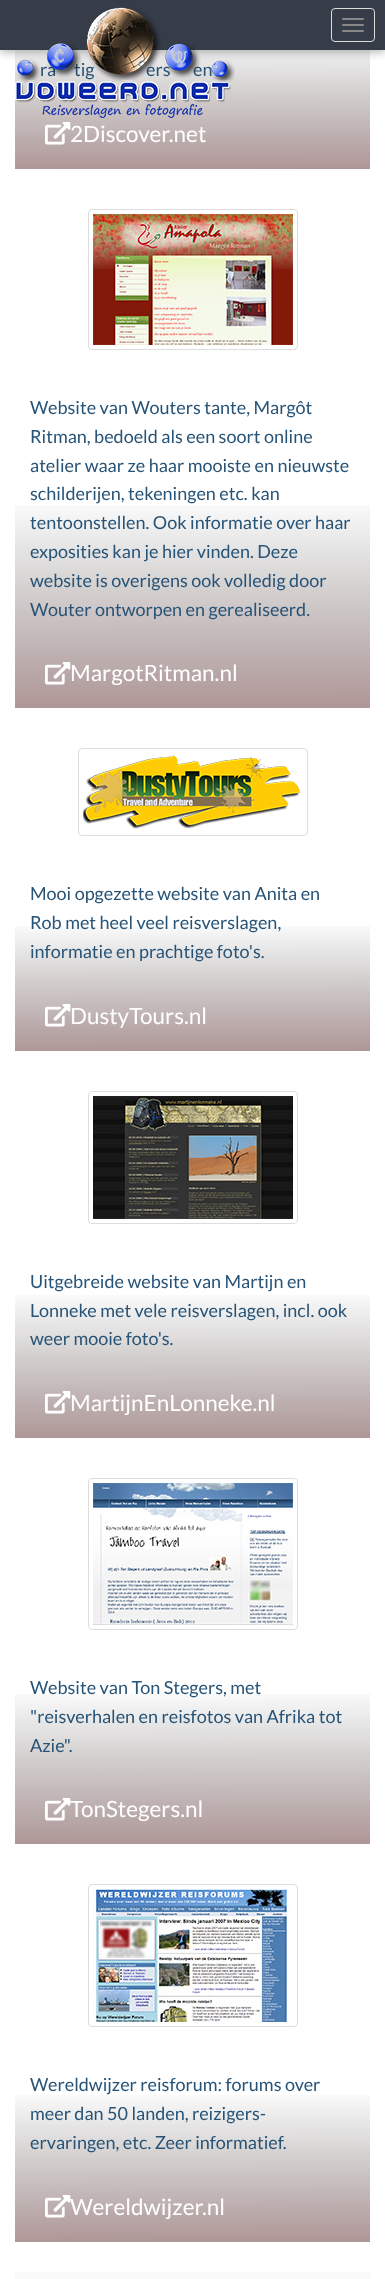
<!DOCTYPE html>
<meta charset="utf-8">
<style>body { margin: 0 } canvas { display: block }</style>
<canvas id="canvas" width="385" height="2279"></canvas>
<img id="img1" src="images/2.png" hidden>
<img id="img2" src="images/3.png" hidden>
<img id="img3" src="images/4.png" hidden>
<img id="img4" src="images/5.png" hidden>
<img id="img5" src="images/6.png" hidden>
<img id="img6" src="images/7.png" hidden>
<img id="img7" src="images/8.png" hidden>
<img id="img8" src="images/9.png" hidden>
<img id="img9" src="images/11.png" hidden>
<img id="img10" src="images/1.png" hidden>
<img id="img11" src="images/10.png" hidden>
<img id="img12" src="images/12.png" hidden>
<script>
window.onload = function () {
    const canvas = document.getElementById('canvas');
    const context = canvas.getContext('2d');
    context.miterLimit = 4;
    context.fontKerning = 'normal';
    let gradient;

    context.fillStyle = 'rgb(255, 255, 255)';
    context.fillRect(0, 0, 385, 2279);
    gradient = context.createLinearGradient(192, -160, 193, 169);
    gradient.addColorStop(0.6, 'rgba(0, 0, 0, 0.02)');
    gradient.addColorStop(1, 'rgba(66, 6, 6, 0.42)');
    context.fillStyle = gradient;
    context.fillRect(15, 50, 355, 119);
    context.fillStyle = 'rgba(0, 0, 0, 0.3)';
    context.filter = 'blur(5px)';
    context.beginPath();
    context.rect(0, 2, 385, 50);
    context.fill();
    context.filter = 'none';
    context.fillStyle = 'rgb(54, 60, 72)';
    context.fillRect(0, 0, 385, 50);
    context.beginPath();
    context.roundRect(331.5, 8.5, 43, 33, 3.5);
    context.strokeStyle = 'rgb(221, 221, 221)';
    context.stroke();
    context.fillStyle = 'rgb(136, 136, 136)';
    context.beginPath();
    context.roundRect(342, 18, 22, 2, 1);
    context.fill();
    context.beginPath();
    context.roundRect(342, 24, 22, 2, 1);
    context.fill();
    context.beginPath();
    context.roundRect(342, 30, 22, 2, 1);
    context.fill();
    context.drawImage(document.getElementById('img1'), 45, 122, 26, 23);
    context.beginPath();
    context.roundRect(88.5, 209.5, 209, 140, 3.5);
    context.stroke();
    context.drawImage(document.getElementById('img2'), 93, 214, 200, 131);
    gradient = context.createLinearGradient(192, 199, 193, 708);
    gradient.addColorStop(0.6, 'rgba(0, 0, 0, 0.02)');
    gradient.addColorStop(1, 'rgba(66, 6, 6, 0.42)');
    context.fillStyle = gradient;
    context.fillRect(15, 505, 355, 203);
    context.drawImage(document.getElementById('img3'), 45, 662, 26, 23);
    context.beginPath();
    context.roundRect(78.5, 748.5, 229, 87, 3.5);
    context.stroke();
    context.drawImage(document.getElementById('img4'), 83, 755, 218, 74);
    gradient = context.createLinearGradient(192, 738, 193, 1051);
    gradient.addColorStop(0.6, 'rgba(0, 0, 0, 0.02)');
    gradient.addColorStop(1, 'rgba(66, 6, 6, 0.42)');
    context.fillStyle = gradient;
    context.fillRect(15, 926, 355, 125);
    context.drawImage(document.getElementById('img5'), 45, 1004, 26, 23);
    context.beginPath();
    context.roundRect(88.5, 1091.5, 209, 132, 3.5);
    context.stroke();
    context.drawImage(document.getElementById('img6'), 93, 1096, 200, 123);
    gradient = context.createLinearGradient(192, 1081, 193, 1438);
    gradient.addColorStop(0.6, 'rgba(0, 0, 0, 0.02)');
    gradient.addColorStop(1, 'rgba(66, 6, 6, 0.42)');
    context.fillStyle = gradient;
    context.fillRect(15, 1295, 355, 143);
    context.drawImage(document.getElementById('img7'), 45, 1391, 26, 23);
    context.beginPath();
    context.roundRect(88.5, 1478.5, 209, 151, 3.5);
    context.stroke();
    context.drawImage(document.getElementById('img8'), 93, 1483, 200, 142);
    gradient = context.createLinearGradient(192, 1468, 193, 1844);
    gradient.addColorStop(0.6, 'rgba(0, 0, 0, 0.02)');
    gradient.addColorStop(1, 'rgba(66, 6, 6, 0.42)');
    context.fillStyle = gradient;
    context.fillRect(15, 1694, 355, 150);
    context.beginPath();
    context.roundRect(88.5, 1884.5, 209, 142, 3.5);
    context.stroke();
    context.drawImage(document.getElementById('img9'), 93, 1889, 200, 133);
    gradient = context.createLinearGradient(192, 1874, 193, 2242);
    gradient.addColorStop(0.6, 'rgba(0, 0, 0, 0.02)');
    gradient.addColorStop(1, 'rgba(66, 6, 6, 0.42)');
    context.fillStyle = gradient;
    context.fillRect(15, 2095, 355, 147);
    gradient = context.createLinearGradient(192, 2272, 193, 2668);
    gradient.addColorStop(0.6, 'rgb(250, 250, 250)');
    gradient.addColorStop(1, 'rgb(176, 151, 151)');
    context.fillStyle = gradient;
    context.fillRect(15, 2272, 355, 7);
    context.font = '18px Lato';
    context.fillStyle = 'rgb(39, 83, 119)';
    context.fillText('ra', 40, 76);
    context.fillText('tig', 74, 76);
    context.fillText('ers', 146, 76);
    context.fillText('en', 193, 76);
    context.drawImage(document.getElementById('img10'), 15, 7, 220, 111);
    context.font = '22.5px Lato';
    context.fillStyle = 'rgb(255, 255, 255)';
    context.fillText('2Discover.net', 70, 142);
    context.font = '18px Lato';
    context.fillStyle = 'rgb(39, 83, 119)';
    context.fillText('Website van Wouters tante, Margôt', 30, 414);
    context.fillText('Ritman, bedoeld als een soort online', 30, 443);
    context.fillText('atelier waar ze haar mooiste en nieuwste', 30, 472);
    context.fillText('schilderijen, tekeningen etc. kan', 30, 500);
    context.fillText('tentoonstellen. Ook informatie over haar', 30, 529);
    context.fillText('exposities kan je hier vinden. Deze', 30, 558);
    context.fillText('website is overigens ook volledig door', 30, 587);
    context.fillText('Wouter ontworpen en gerealiseerd.', 30, 616);
    context.font = '22.5px Lato';
    context.fillStyle = 'rgb(255, 255, 255)';
    context.fillText('MargotRitman.nl', 70, 681);
    context.font = '18px Lato';
    context.fillStyle = 'rgb(39, 83, 119)';
    context.fillText('Mooi opgezette website van Anita en', 30, 900);
    context.fillText('Rob met heel veel reisverslagen,', 30, 929);
    context.fillText('informatie en prachtige foto\'s.', 30, 958);
    context.font = '22.5px Lato';
    context.fillStyle = 'rgb(255, 255, 255)';
    context.fillText('DustyTours.nl', 70, 1024);
    context.font = '18px Lato';
    context.fillStyle = 'rgb(39, 83, 119)';
    context.fillText('Uitgebreide website van Martijn en', 30, 1288);
    context.fillText('Lonneke met vele reisverslagen, incl. ook', 30, 1317);
    context.fillText('weer mooie foto\'s.', 30, 1345);
    context.font = '22.5px Lato';
    context.fillStyle = 'rgb(255, 255, 255)';
    context.fillText('MartijnEnLonneke.nl', 70, 1411);
    context.font = '18px Lato';
    context.fillStyle = 'rgb(39, 83, 119)';
    context.fillText('Website van Ton Stegers, met', 30, 1694);
    context.fillText('"reisverhalen en reisfotos van Afrika tot', 30, 1723);
    context.fillText('Azie".', 30, 1752);
    context.font = '22.5px Lato';
    context.fillStyle = 'rgb(255, 255, 255)';
    context.fillText('TonStegers.nl', 70, 1817);
    context.drawImage(document.getElementById('img11'), 45, 1798, 26, 23);
    context.font = '18px Lato';
    context.fillStyle = 'rgb(39, 83, 119)';
    context.fillText('Wereldwijzer reisforum: forums over', 30, 2091);
    context.fillText('meer dan 50 landen, reizigers-', 30, 2120);
    context.fillText('ervaringen, etc. Zeer informatief.', 30, 2149);
    context.font = '22.5px Lato';
    context.fillStyle = 'rgb(255, 255, 255)';
    context.fillText('Wereldwijzer.nl', 70, 2215);
    context.drawImage(document.getElementById('img12'), 45, 2195, 26, 23);
};
</script>
